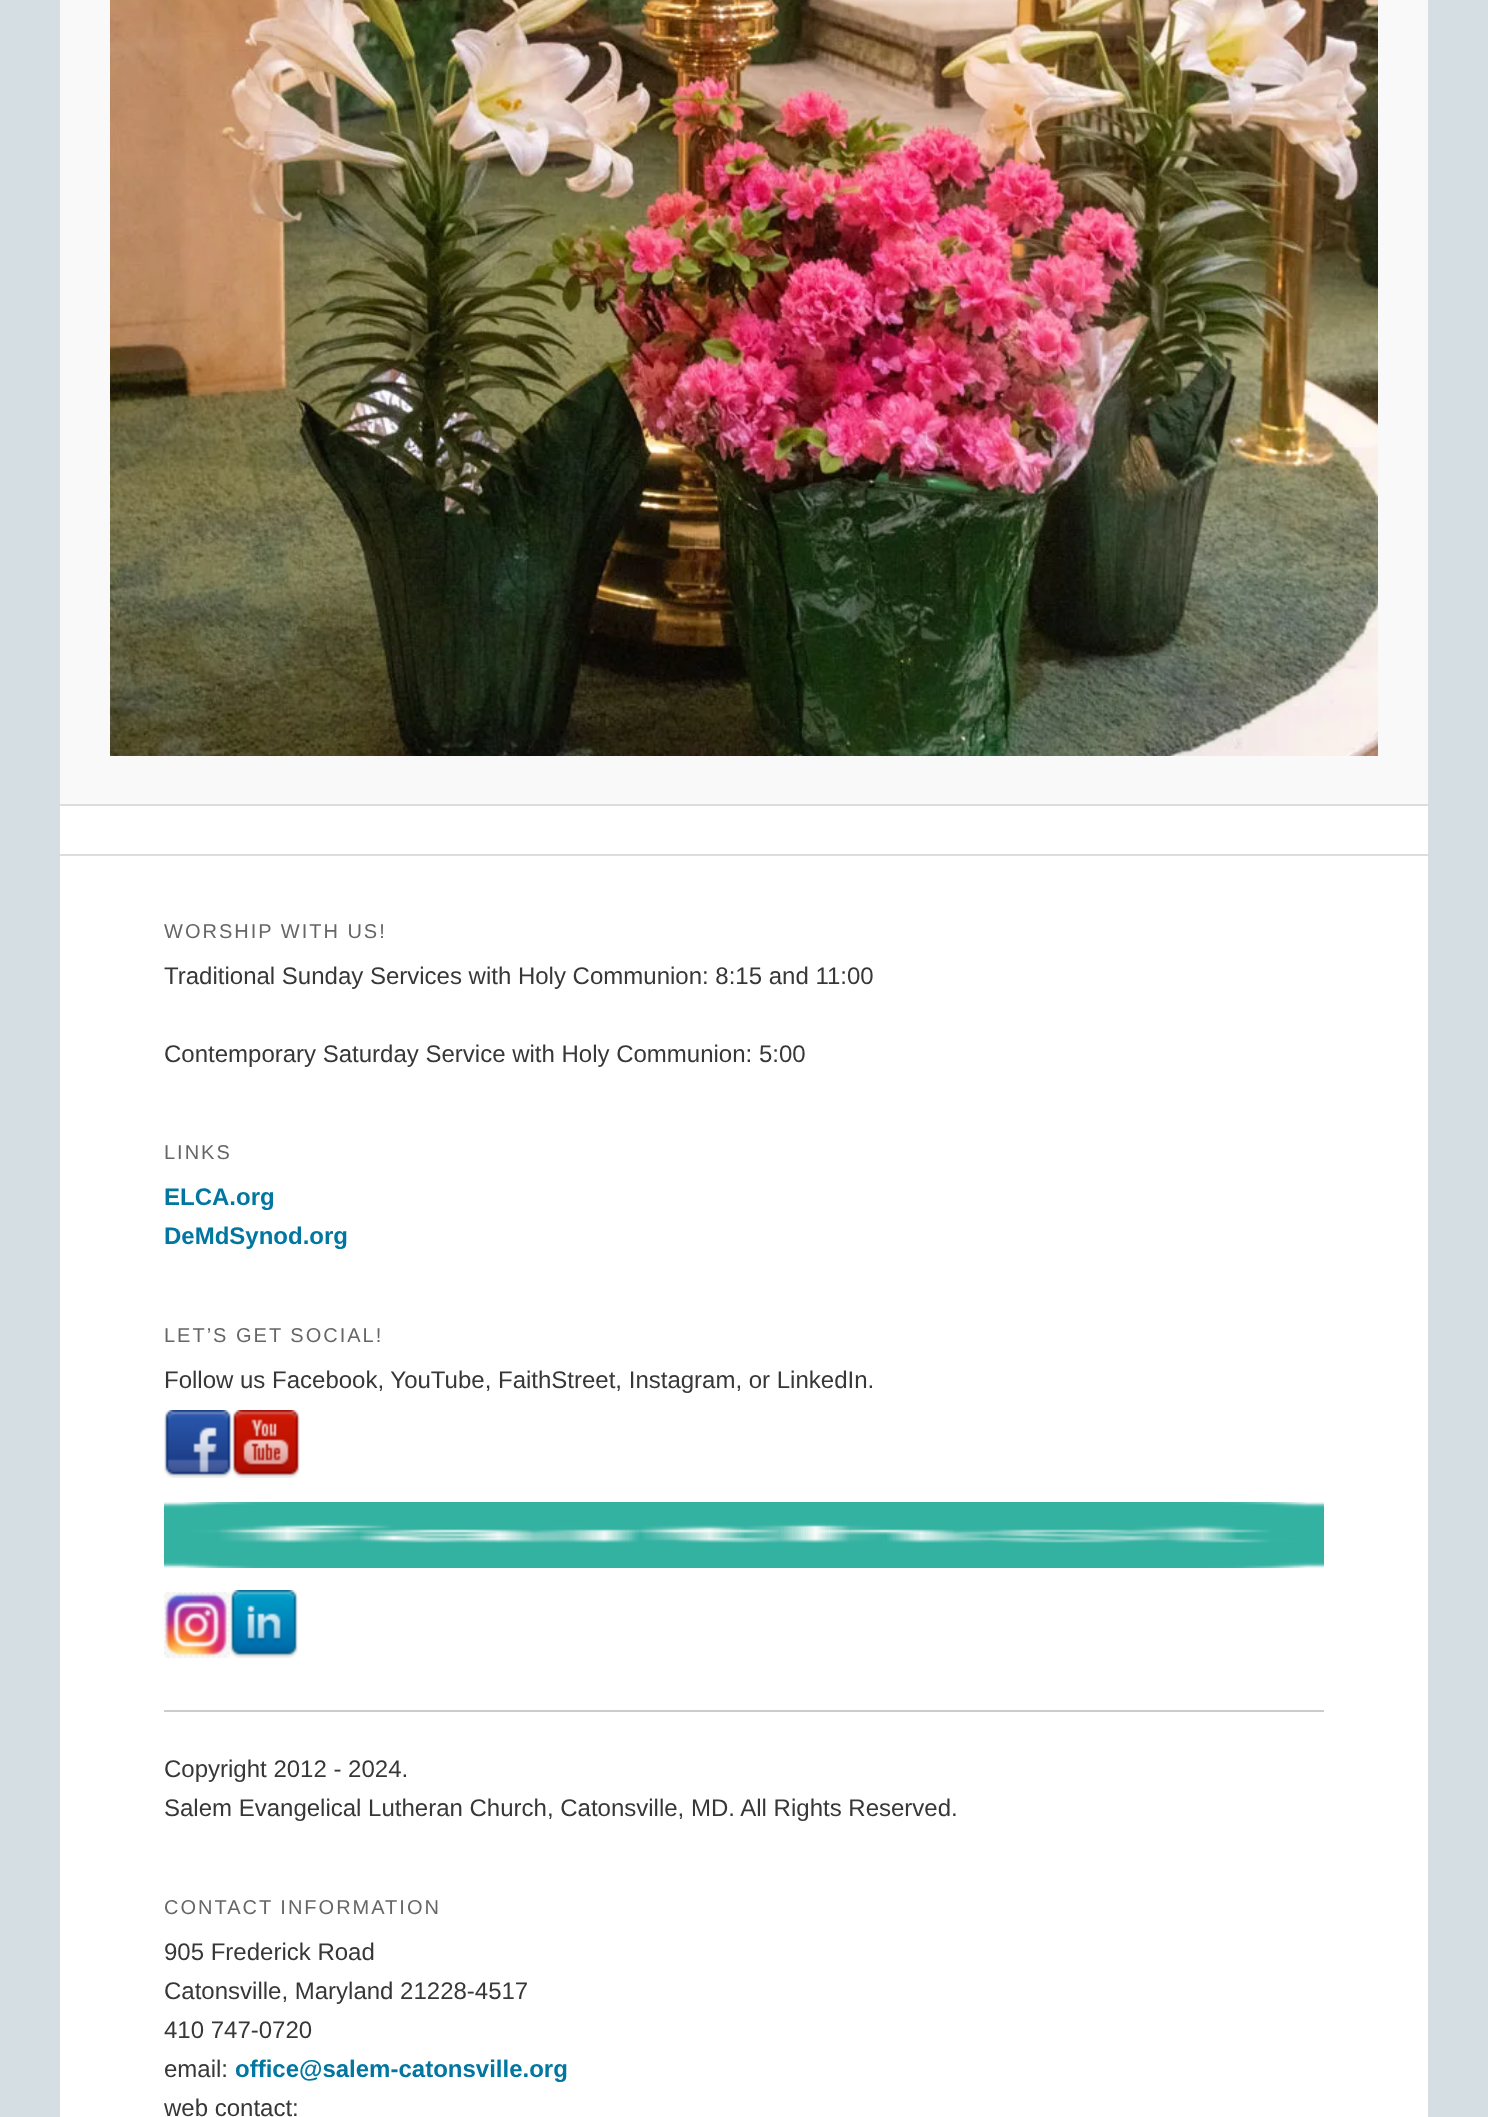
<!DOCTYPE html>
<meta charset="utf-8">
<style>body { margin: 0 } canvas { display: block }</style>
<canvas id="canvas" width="1488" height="2117"></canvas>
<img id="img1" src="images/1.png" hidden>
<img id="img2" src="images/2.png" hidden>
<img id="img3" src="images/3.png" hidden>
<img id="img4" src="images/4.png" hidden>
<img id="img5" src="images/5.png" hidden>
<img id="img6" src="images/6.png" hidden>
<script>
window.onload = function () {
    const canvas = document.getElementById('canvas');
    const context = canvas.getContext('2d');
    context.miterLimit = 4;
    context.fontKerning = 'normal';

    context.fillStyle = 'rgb(213, 222, 227)';
    context.fillRect(0, 0, 1488, 2117);
    context.fillStyle = 'rgb(255, 255, 255)';
    context.fillRect(60, 806, 1368, 1311);
    context.fillStyle = 'rgb(249, 249, 249)';
    context.fillRect(60, 0, 1368, 804);
    context.fillStyle = 'rgb(221, 221, 221)';
    context.fillRect(60, 804, 1368, 2);
    context.drawImage(document.getElementById('img1'), 110, 0, 1268, 756);
    context.fillRect(60, 854, 1368, 2);
    context.drawImage(document.getElementById('img2'), 164, 1410, 68, 68);
    context.drawImage(document.getElementById('img3'), 232, 1410, 68, 68);
    context.drawImage(document.getElementById('img4'), 164, 1502, 1160, 66);
    context.drawImage(document.getElementById('img5'), 164, 1592, 66, 66);
    context.drawImage(document.getElementById('img6'), 230, 1590, 68, 68);
    context.fillStyle = 'rgb(204, 204, 204)';
    context.fillRect(164, 1710, 1160, 2);
    context.letterSpacing = '2px';
    context.font = '20px Liberation Sans';
    context.fillStyle = 'rgb(102, 102, 102)';
    context.fillText('WORSHIP WITH US!', 164, 938);
    context.letterSpacing = '0px';
    context.font = '24px Liberation Sans';
    context.fillStyle = 'rgb(55, 55, 55)';
    context.fillText('Traditional Sunday Services with Holy Communion: 8:15 and 11:00', 164, 984);
    context.fillText('Contemporary Saturday Service with Holy Communion: 5:00', 164, 1062);
    context.letterSpacing = '2px';
    context.font = '20px Liberation Sans';
    context.fillStyle = 'rgb(102, 102, 102)';
    context.fillText('LINKS', 164, 1159);
    context.letterSpacing = '0px';
    context.font = 'bold 24px Liberation Sans';
    context.fillStyle = 'rgb(1, 118, 160)';
    context.fillText('ELCA.org', 164, 1205);
    context.fillText('DeMdSynod.org', 164, 1244);
    context.letterSpacing = '2px';
    context.font = '20px Liberation Sans';
    context.fillStyle = 'rgb(102, 102, 102)';
    context.fillText('LET’S GET SOCIAL!', 164, 1342);
    context.letterSpacing = '0px';
    context.font = '24px Liberation Sans';
    context.fillStyle = 'rgb(55, 55, 55)';
    context.fillText('Follow us Facebook, YouTube, FaithStreet, Instagram, or LinkedIn.', 164, 1388);
    context.fillText('Copyright 2012 - 2024.', 164, 1777);
    context.fillText('Salem Evangelical Lutheran Church, Catonsville, MD. All Rights Reserved.', 164, 1816);
    context.letterSpacing = '2px';
    context.font = '20px Liberation Sans';
    context.fillStyle = 'rgb(102, 102, 102)';
    context.fillText('CONTACT INFORMATION', 164, 1914);
    context.letterSpacing = '0px';
    context.font = '24px Liberation Sans';
    context.fillStyle = 'rgb(55, 55, 55)';
    context.fillText('905 Frederick Road', 164, 1960);
    context.fillText('Catonsville, Maryland 21228-4517', 164, 1999);
    context.fillText('410 747-0720', 164, 2038);
    context.fillText('email:', 164, 2077);
    context.font = 'bold 24px Liberation Sans';
    context.fillStyle = 'rgb(1, 118, 160)';
    context.fillText('office@salem-catonsville.org', 235, 2077);
    context.font = '24px Liberation Sans';
    context.fillStyle = 'rgb(55, 55, 55)';
    context.fillText('web contact:', 164, 2116);
};
</script>
